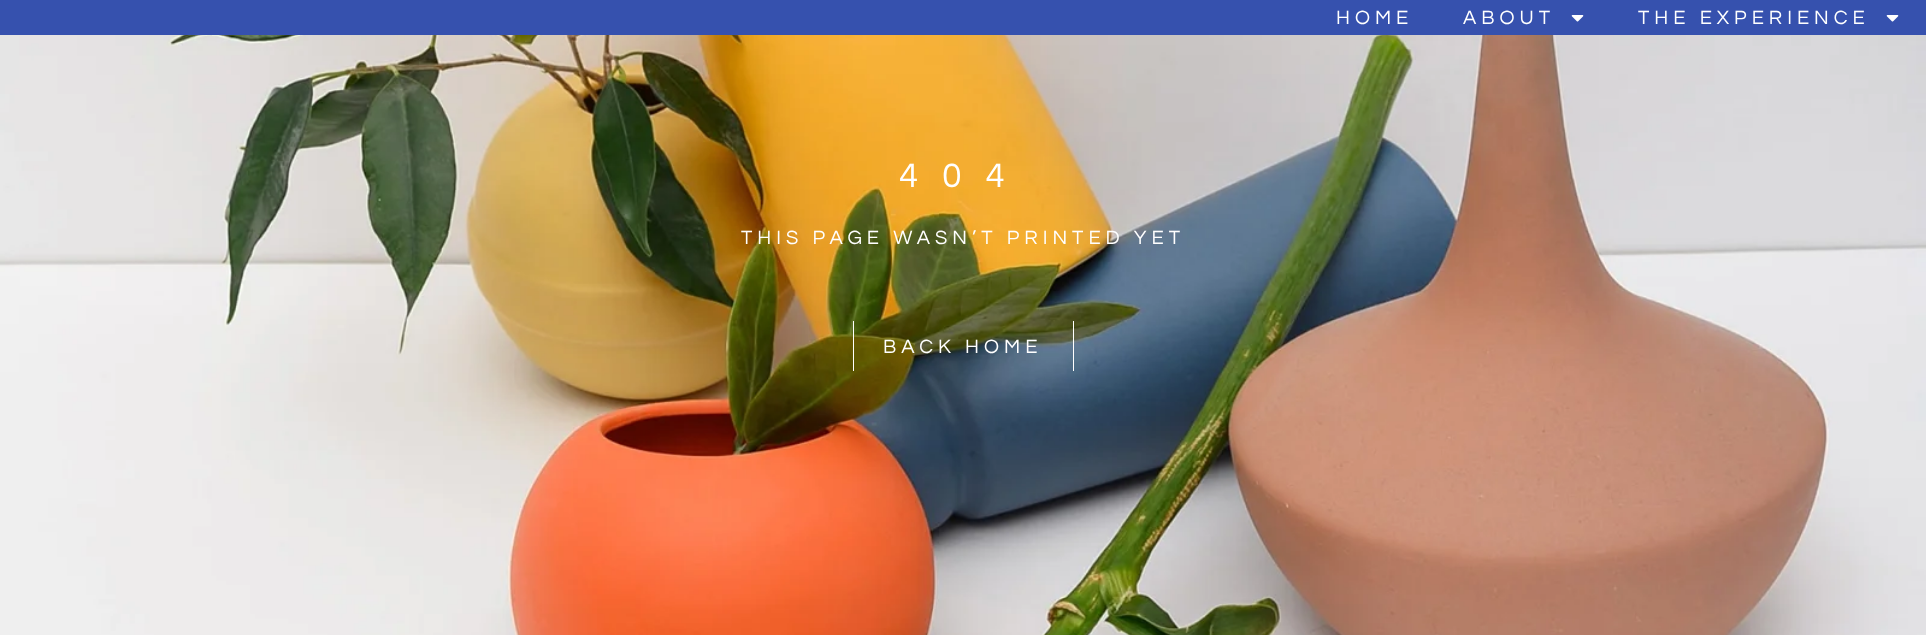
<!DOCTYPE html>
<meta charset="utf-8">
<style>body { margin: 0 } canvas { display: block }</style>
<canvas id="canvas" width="1926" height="635"></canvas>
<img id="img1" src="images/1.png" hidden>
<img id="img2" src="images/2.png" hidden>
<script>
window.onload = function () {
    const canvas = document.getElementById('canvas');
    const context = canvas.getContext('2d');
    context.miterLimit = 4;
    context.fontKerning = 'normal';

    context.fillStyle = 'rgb(255, 255, 255)';
    context.fillRect(0, 0, 1926, 635);
    context.fillStyle = 'rgb(54, 81, 174)';
    context.fillRect(0, 0, 1926, 35);
    context.drawImage(document.getElementById('img1'), 1571, 15, 13, 7);
    context.drawImage(document.getElementById('img1'), 1886, 15, 13, 7);
    context.drawImage(document.getElementById('img2'), 0, 35, 1926, 600);
    context.fillStyle = 'rgb(255, 255, 255)';
    context.fillRect(1073, 321, 1, 50);
    context.fillRect(853, 321, 1, 50);
    context.letterSpacing = '5px';
    context.font = '20px Questrial';
    context.fillText('HOME', 1336, 24);
    context.fillText('ABOUT', 1463, 24);
    context.fillText('THE EXPERIENCE', 1638, 24);
    context.letterSpacing = '24px';
    context.font = '35px Questrial';
    context.fillText('404', 899, 187);
    context.letterSpacing = '5px';
    context.font = '20px Questrial';
    context.fillText('THIS PAGE WASN’T PRINTED YET', 741, 244);
    context.fillText('BACK HOME', 883, 353);
};
</script>
